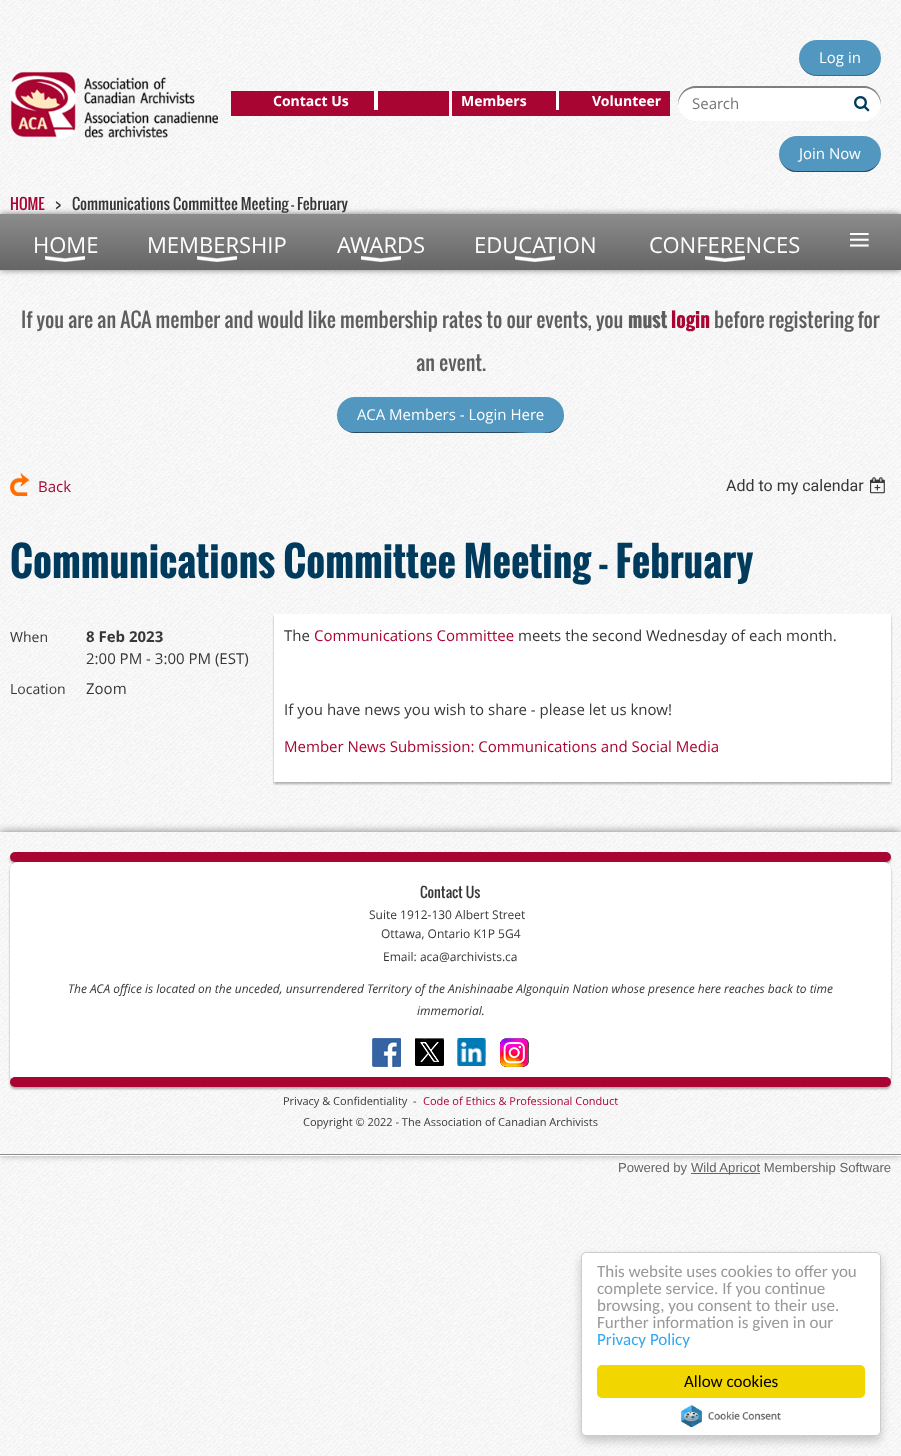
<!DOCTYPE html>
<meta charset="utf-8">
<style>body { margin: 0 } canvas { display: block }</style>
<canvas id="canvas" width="901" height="1456"></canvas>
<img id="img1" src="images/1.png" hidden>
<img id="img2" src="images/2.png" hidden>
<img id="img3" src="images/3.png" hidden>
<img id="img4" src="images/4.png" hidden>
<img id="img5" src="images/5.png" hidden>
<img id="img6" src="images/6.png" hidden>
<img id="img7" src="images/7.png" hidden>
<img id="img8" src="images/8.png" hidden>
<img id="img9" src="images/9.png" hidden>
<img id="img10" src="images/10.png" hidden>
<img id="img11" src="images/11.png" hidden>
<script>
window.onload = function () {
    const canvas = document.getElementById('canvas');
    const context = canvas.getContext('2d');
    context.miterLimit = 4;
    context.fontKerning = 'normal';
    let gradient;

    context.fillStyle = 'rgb(255, 255, 255)';
    context.fillRect(0, 0, 901, 1456);
    context.drawImage(document.getElementById('img1'), 0, 0, 901, 1456);
    context.fillStyle = 'rgb(82, 151, 191)';
    context.beginPath();
    context.roundRect(799, 40, 82, 36, 18);
    context.fill();
    context.fillStyle = 'rgba(0, 0, 0, 0.3)';
    context.beginPath();
    context.moveTo(799, 58);
    context.bezierCurveTo(799, 68, 807, 76, 817, 76);
    context.lineTo(863, 76);
    context.bezierCurveTo(873, 76, 881, 68, 881, 58);
    context.bezierCurveTo(881, 67, 873, 75, 863, 75);
    context.lineTo(817, 75);
    context.bezierCurveTo(807, 75, 799, 67, 799, 58);
    context.closePath();
    context.fill();
    context.drawImage(document.getElementById('img2'), 10, 71, 208, 67);
    context.fillStyle = 'rgb(168, 5, 50)';
    context.fillRect(231, 91, 218, 25);
    context.fillStyle = 'rgb(255, 255, 255)';
    context.fillRect(374, 91, 4, 19);
    context.fillStyle = 'rgb(168, 5, 50)';
    context.fillRect(452, 91, 218, 25);
    context.fillStyle = 'rgb(255, 255, 255)';
    context.fillRect(556, 91, 3, 19);
    context.beginPath();
    context.roundRect(678, 86, 203, 35, 17.5);
    context.fill();
    context.fillStyle = 'rgba(0, 0, 0, 0.5)';
    context.beginPath();
    context.moveTo(696, 88);
    context.lineTo(864, 88);
    context.bezierCurveTo(873, 88, 880, 95, 881, 105);
    context.lineTo(881, 104);
    context.bezierCurveTo(881, 94, 873, 86, 864, 86);
    context.lineTo(696, 86);
    context.bezierCurveTo(686, 86, 678, 94, 678, 104);
    context.lineTo(678, 105);
    context.bezierCurveTo(679, 95, 686, 88, 696, 88);
    context.closePath();
    context.fill();
    context.drawImage(document.getElementById('img3'), 854, 96, 16, 16);
    context.fillStyle = 'rgb(82, 151, 191)';
    context.beginPath();
    context.roundRect(779, 136, 102, 36, 18);
    context.fill();
    context.fillStyle = 'rgba(0, 0, 0, 0.5)';
    context.beginPath();
    context.moveTo(779, 154);
    context.bezierCurveTo(779, 162, 785, 170, 793, 172);
    context.lineTo(808, 172);
    context.lineTo(867, 172);
    context.bezierCurveTo(875, 170, 881, 162, 881, 154);
    context.bezierCurveTo(881, 163, 873, 171, 863, 171);
    context.lineTo(797, 171);
    context.bezierCurveTo(787, 171, 779, 163, 779, 154);
    context.closePath();
    context.fill();
    context.filter = 'blur(3px)';
    context.beginPath();
    context.rect(0, 214, 901, 56);
    context.fill();
    context.filter = 'none';
    gradient = context.createLinearGradient(451, 214, 451, 270);
    gradient.addColorStop(0, 'rgb(140, 140, 140)');
    gradient.addColorStop(1, 'rgb(101, 101, 101)');
    context.fillStyle = gradient;
    context.fillRect(0, 214, 901, 56);
    context.drawImage(document.getElementById('img4'), 45, 256, 40, 6);
    context.drawImage(document.getElementById('img4'), 197, 256, 40, 6);
    context.drawImage(document.getElementById('img4'), 361, 256, 40, 6);
    context.drawImage(document.getElementById('img4'), 515, 256, 40, 6);
    context.drawImage(document.getElementById('img4'), 705, 256, 40, 6);
    context.fillStyle = 'rgb(82, 151, 191)';
    context.beginPath();
    context.roundRect(337, 397, 227, 36, 18);
    context.fill();
    context.fillStyle = 'rgba(0, 0, 0, 0.5)';
    context.beginPath();
    context.moveTo(337, 412);
    context.lineTo(337, 415);
    context.bezierCurveTo(337, 425, 345, 433, 355, 433);
    context.lineTo(530, 433);
    context.lineTo(514, 432);
    context.lineTo(351, 432);
    context.lineTo(347, 431);
    context.bezierCurveTo(340, 427, 336, 419, 337, 412);
    context.closePath();
    context.moveTo(540, 433);
    context.lineTo(550, 433);
    context.bezierCurveTo(558, 431, 565, 422, 564, 413);
    context.bezierCurveTo(564, 429, 552, 433, 540, 433);
    context.closePath();
    context.fill('evenodd');
    context.drawImage(document.getElementById('img5'), 10, 473, 19, 23);
    context.drawImage(document.getElementById('img6'), 870, 477, 15, 17);
    context.fillStyle = 'rgba(0, 0, 0, 0.3)';
    context.filter = 'blur(1px)';
    context.beginPath();
    context.rect(274, 616, 617, 168);
    context.fill();
    context.filter = 'none';
    context.fillStyle = 'rgb(255, 255, 255)';
    context.fillRect(274, 614, 617, 168);
    context.save();
    context.beginPath();
    context.moveTo(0, 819);
    context.lineTo(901, 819);
    context.lineTo(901, 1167);
    context.lineTo(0, 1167);
    context.closePath();
    context.moveTo(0, 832);
    context.lineTo(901, 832);
    context.lineTo(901, 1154);
    context.lineTo(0, 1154);
    context.closePath();
    context.clip('evenodd');
    context.fillStyle = 'rgba(0, 0, 0, 0.5)';
    context.filter = 'blur(4px)';
    context.beginPath();
    context.rect(0, 832, 901, 322);
    context.fill();
    context.filter = 'none';
    context.restore();
    context.fillStyle = 'rgba(0, 0, 0, 0.3)';
    context.filter = 'blur(1px)';
    context.beginPath();
    context.roundRect(10, 854, 881, 10, 5);
    context.fill();
    context.filter = 'none';
    context.fillStyle = 'rgb(168, 5, 50)';
    context.beginPath();
    context.roundRect(10, 852, 881, 10, 5);
    context.fill();
    context.fillStyle = 'rgba(0, 0, 0, 0.3)';
    context.filter = 'blur(1px)';
    context.beginPath();
    context.roundRect(10, 864, 881, 221, 8);
    context.fill();
    context.filter = 'none';
    context.fillStyle = 'rgb(255, 255, 255)';
    context.beginPath();
    context.roundRect(10, 862, 881, 221, 8);
    context.fill();
    context.drawImage(document.getElementById('img7'), 372, 1038, 29, 29);
    context.drawImage(document.getElementById('img8'), 415, 1038, 29, 28);
    context.drawImage(document.getElementById('img9'), 457, 1038, 29, 28);
    context.drawImage(document.getElementById('img10'), 500, 1038, 29, 29);
    context.fillStyle = 'rgba(0, 0, 0, 0.3)';
    context.filter = 'blur(1px)';
    context.beginPath();
    context.roundRect(10, 1079, 881, 10, 5);
    context.fill();
    context.filter = 'none';
    context.fillStyle = 'rgb(168, 5, 50)';
    context.beginPath();
    context.roundRect(10, 1077, 881, 10, 5);
    context.fill();
    context.fillStyle = 'rgb(141, 141, 141)';
    context.fillRect(0, 1154, 901, 1);
    context.fillStyle = 'rgb(255, 255, 255)';
    context.fillRect(0, 1155, 901, 1);
    context.fillStyle = 'rgb(100, 100, 100)';
    context.fillRect(691, 1173, 69, 1);
    context.fillStyle = 'rgba(0, 0, 0, 0.2)';
    context.filter = 'blur(5px)';
    context.beginPath();
    context.roundRect(581, 1257, 300, 184, 5);
    context.fill();
    context.filter = 'none';
    context.fillStyle = 'rgb(255, 255, 255)';
    context.beginPath();
    context.roundRect(581.5, 1252.5, 299, 183, 4.5);
    context.fill();
    context.strokeStyle = 'rgb(204, 204, 204)';
    context.stroke();
    context.fillStyle = 'rgb(241, 214, 0)';
    context.beginPath();
    context.roundRect(597, 1365, 268, 33, 5);
    context.fill();
    context.drawImage(document.getElementById('img11'), 681, 1405, 100, 22);
    context.font = '15px Open Sans';
    context.fillStyle = 'rgb(255, 255, 255)';
    context.fillText('Log in', 819, 63);
    context.font = 'bold 14px Open Sans';
    context.fillText('Contact Us', 273, 106);
    context.fillText('Members', 461, 106);
    context.fillText('Volunteer', 592, 106);
    context.font = '15px Open Sans';
    context.fillStyle = 'rgb(117, 117, 117)';
    context.fillText('Search', 692, 109);
    context.fillStyle = 'rgb(255, 255, 255)';
    context.fillText('Join Now', 799, 159);
    context.font = '15px Oswald';
    context.fillStyle = 'rgb(168, 5, 50)';
    context.fillText('HOME', 10, 210);
    context.fillStyle = 'rgb(55, 55, 55)';
    context.fillText('>', 55, 210);
    context.fillText('Communications Committee Meeting - February', 72, 210);
    context.font = '22px Open Sans';
    context.fillStyle = 'rgb(255, 255, 255)';
    context.fillText('HOME', 33, 253);
    context.fillText('MEMBERSHIP', 147, 253);
    context.fillText('AWARDS', 337, 253);
    context.fillText('EDUCATION', 474, 253);
    context.fillText('CONFERENCES', 649, 253);
    context.font = '40px Liberation Serif';
    context.fillText('≡', 848, 253);
    context.font = '20px Oswald';
    context.fillStyle = 'rgb(94, 94, 94)';
    context.fillText('If you are an ACA member and would like membership rates to our events, you', 21, 328);
    context.font = 'bold 20px Oswald';
    context.fillText('must', 628, 328);
    context.fillStyle = 'rgb(168, 5, 50)';
    context.fillText('login', 671, 328);
    context.font = '20px Oswald';
    context.fillStyle = 'rgb(94, 94, 94)';
    context.fillText('before registering for', 714, 328);
    context.fillText('an event.', 416, 371);
    context.font = '15px Open Sans';
    context.fillStyle = 'rgb(255, 255, 255)';
    context.fillText('ACA Members - Login Here', 357, 420);
    context.fillStyle = 'rgb(168, 5, 50)';
    context.fillText('Back', 38, 492);
    context.font = '16px Roboto';
    context.fillStyle = 'rgb(55, 55, 55)';
    context.fillText('Add to my calendar', 726, 491);
    context.font = 'bold 40px Oswald';
    context.fillStyle = 'rgb(0, 58, 92)';
    context.fillText('Communications Committee Meeting - February', 10, 578);
    context.font = '14px Open Sans';
    context.fillStyle = 'rgb(55, 55, 55)';
    context.fillText('When', 10, 642);
    context.font = 'bold 15px Open Sans';
    context.fillText('8 Feb 2023', 86, 642);
    context.font = '15px Open Sans';
    context.fillText('2:00 PM - 3:00 PM (EST)', 86, 664);
    context.font = '14px Open Sans';
    context.fillText('Location', 10, 694);
    context.font = '15px Open Sans';
    context.fillText('Zoom', 86, 694);
    context.fillText('The', 284, 641);
    context.fillStyle = 'rgb(168, 5, 50)';
    context.fillText('Communications Committee', 314, 641);
    context.fillStyle = 'rgb(55, 55, 55)';
    context.fillText('meets the second Wednesday of each month.', 518, 641);
    context.fillText('If you have news you wish to share - please let us know!', 284, 715);
    context.fillStyle = 'rgb(168, 5, 50)';
    context.fillText('Member News Submission: Communications and Social Media', 284, 752);
    context.font = '14px Oswald';
    context.fillStyle = 'rgb(55, 55, 55)';
    context.fillText('Contact Us', 420, 898);
    context.font = '12px Open Sans';
    context.fillText('Suite 1912-130 Albert Street', 369, 919);
    context.fillText('Ottawa, Ontario K1P 5G4', 381, 938);
    context.fillText('Email: aca@archivists.ca', 383, 961);
    context.font = 'italic 12px Open Sans';
    context.fillText('The ACA office is located on the unceded, unsurrendered Territory of the Anishinaabe Algonquin Nation whose presence here reaches back to time', 68, 993);
    context.fillText('immemorial.', 417, 1015);
    context.font = '11px Open Sans';
    context.fillText('Privacy & Confidentiality  -', 283, 1105);
    context.fillStyle = 'rgb(168, 5, 50)';
    context.fillText('Code of Ethics & Professional Conduct', 423, 1105);
    context.fillStyle = 'rgb(55, 55, 55)';
    context.fillText('Copyright © 2022 - The Association of Canadian Archivists', 303, 1126);
    context.font = '13.1px Liberation Sans';
    context.fillStyle = 'rgb(100, 100, 100)';
    context.fillText('Powered by', 618, 1172);
    context.fillText('Wild Apricot Membership Software', 691, 1172);
    context.font = '17px Carlito';
    context.fillStyle = 'rgb(153, 153, 153)';
    context.fillText('This website uses cookies to offer you', 597, 1277);
    context.fillText('complete service. If you continue', 597, 1294);
    context.fillText('browsing, you consent to their use.', 597, 1311);
    context.fillText('Further information is given in our', 597, 1328);
    context.fillStyle = 'rgb(49, 168, 240)';
    context.fillText('Privacy Policy', 597, 1345);
    context.fillStyle = 'rgb(0, 0, 0)';
    context.fillText('Allow cookies', 684, 1387);
};
</script>
